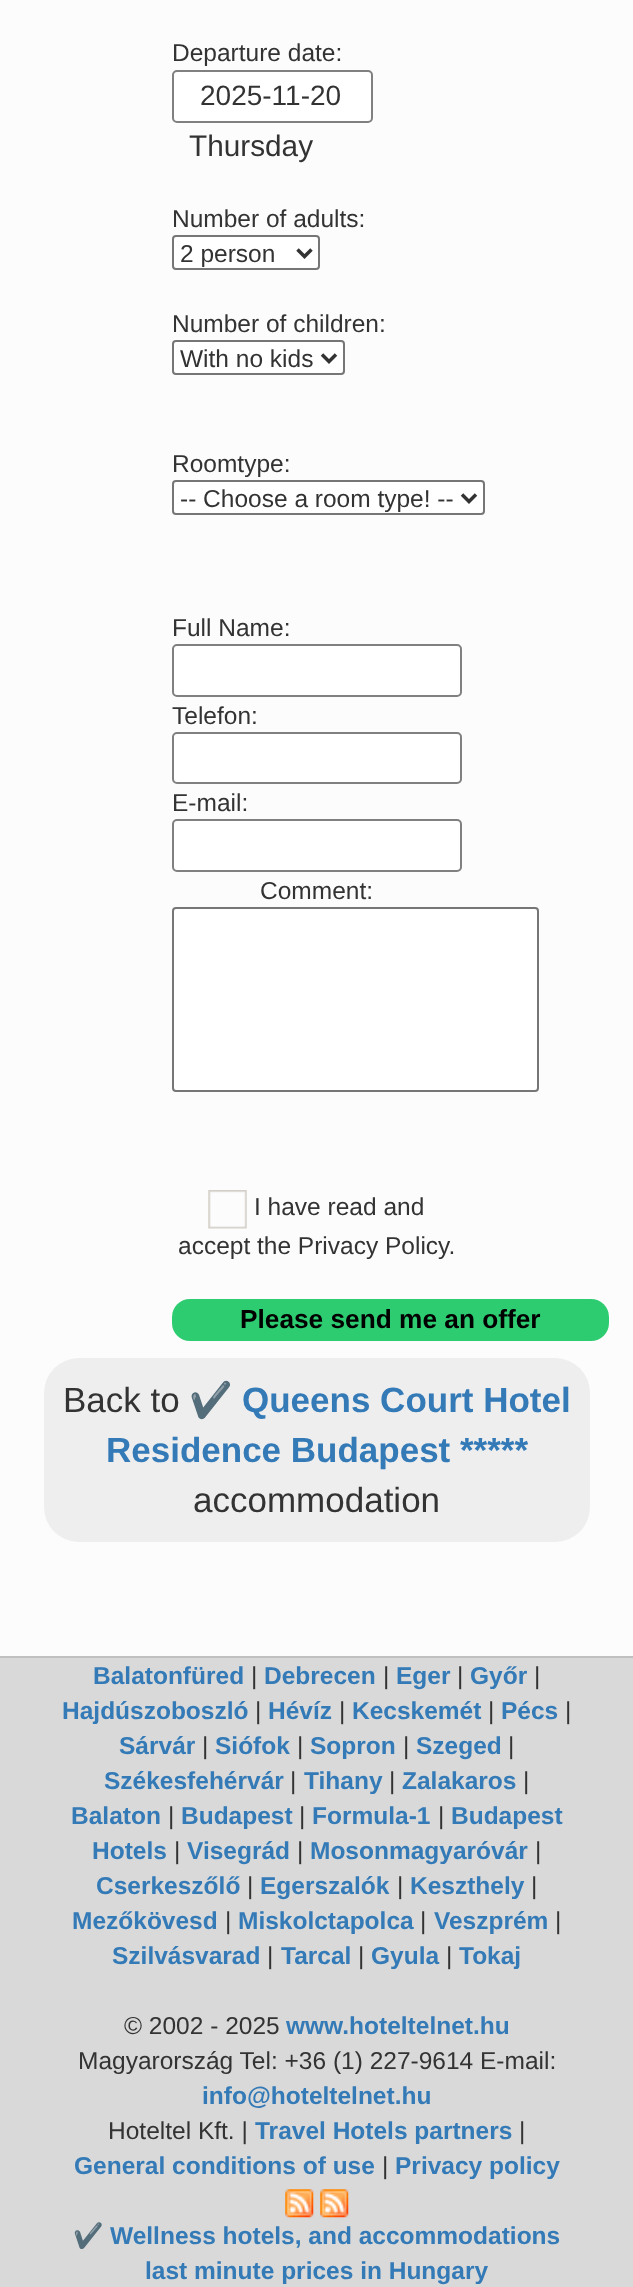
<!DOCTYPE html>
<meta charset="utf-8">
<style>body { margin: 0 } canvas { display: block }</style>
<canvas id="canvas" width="633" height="2287"></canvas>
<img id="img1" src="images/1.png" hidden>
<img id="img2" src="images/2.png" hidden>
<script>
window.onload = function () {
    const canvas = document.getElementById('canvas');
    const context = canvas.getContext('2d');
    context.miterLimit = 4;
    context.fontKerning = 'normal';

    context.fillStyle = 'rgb(252, 252, 252)';
    context.fillRect(0, 0, 633, 2287);
    context.fillStyle = 'rgb(255, 255, 255)';
    context.beginPath();
    context.roundRect(173, 71, 199, 51, 4);
    context.fill();
    context.strokeStyle = 'rgb(128, 128, 128)';
    context.lineWidth = 2;
    context.stroke();
    context.beginPath();
    context.roundRect(173, 236, 146, 33, 3);
    context.fill();
    context.strokeStyle = 'rgb(118, 118, 118)';
    context.stroke();
    context.beginPath();
    context.moveTo(297.5, 249.5);
    context.lineTo(304.5, 256.5);
    context.lineTo(311.5, 249.5);
    context.strokeStyle = 'rgb(51, 51, 51)';
    context.lineWidth = 3.5;
    context.stroke();
    context.beginPath();
    context.roundRect(173, 341, 171, 33, 3);
    context.fill();
    context.strokeStyle = 'rgb(118, 118, 118)';
    context.lineWidth = 2;
    context.stroke();
    context.beginPath();
    context.moveTo(322, 354.5);
    context.lineTo(329, 361.5);
    context.lineTo(336, 354.5);
    context.strokeStyle = 'rgb(51, 51, 51)';
    context.lineWidth = 3.5;
    context.stroke();
    context.beginPath();
    context.roundRect(173, 481, 311, 33, 3);
    context.fill();
    context.strokeStyle = 'rgb(118, 118, 118)';
    context.lineWidth = 2;
    context.stroke();
    context.beginPath();
    context.moveTo(462, 494.5);
    context.lineTo(469, 501.5);
    context.lineTo(476, 494.5);
    context.strokeStyle = 'rgb(51, 51, 51)';
    context.lineWidth = 3.5;
    context.stroke();
    context.beginPath();
    context.roundRect(173, 645, 288, 51, 4);
    context.fill();
    context.strokeStyle = 'rgb(128, 128, 128)';
    context.lineWidth = 2;
    context.stroke();
    context.beginPath();
    context.roundRect(173, 733, 288, 50, 4);
    context.fill();
    context.stroke();
    context.beginPath();
    context.roundRect(173, 820, 288, 51, 4);
    context.fill();
    context.stroke();
    context.beginPath();
    context.roundRect(173, 908, 365, 183, 3);
    context.fill();
    context.strokeStyle = 'rgb(118, 118, 118)';
    context.stroke();
    context.drawImage(document.getElementById('img1'), 208, 1190, 39, 39);
    context.fillStyle = 'rgb(46, 204, 113)';
    context.beginPath();
    context.roundRect(172, 1299, 437, 42, 18);
    context.fill();
    context.fillStyle = 'rgb(238, 238, 238)';
    context.beginPath();
    context.roundRect(44, 1358, 546, 184, 35);
    context.fill();
    context.fillStyle = 'rgb(217, 217, 217)';
    context.fillRect(0, 1658, 633, 629);
    context.fillStyle = 'rgb(192, 192, 192)';
    context.fillRect(0, 1656, 633, 2);
    context.drawImage(document.getElementById('img2'), 285, 2189, 29, 29);
    context.drawImage(document.getElementById('img2'), 320, 2189, 29, 29);
    context.font = '24.5px Liberation Sans';
    context.fillStyle = 'rgb(51, 51, 51)';
    context.fillText('Departure date:', 172, 61);
    context.font = '28px Liberation Sans';
    context.fillText('2025-11-20', 200, 105);
    context.font = '29.75px Liberation Sans';
    context.fillText('Thursday', 189, 156);
    context.font = '24.5px Liberation Sans';
    context.fillText('Number of adults:', 172, 227);
    context.fillText('2 person', 180, 262);
    context.fillText('Number of children:', 172, 332);
    context.fillText('With no kids', 180, 367);
    context.fillText('Roomtype:', 172, 472);
    context.fillText('-- Choose a room type! --', 180, 507);
    context.fillText('Full Name:', 172, 636);
    context.fillText('Telefon:', 172, 724);
    context.fillText('E-mail:', 172, 811);
    context.fillText('Comment:', 260, 899);
    context.fillText('I have read and', 254, 1215);
    context.fillText('accept the Privacy Policy.', 178, 1254);
    context.font = 'bold 26.25px Liberation Sans';
    context.fillStyle = 'rgb(0, 0, 0)';
    context.fillText('Please send me an offer', 240, 1328);
    context.font = '35px Liberation Sans';
    context.fillStyle = 'rgb(51, 51, 51)';
    context.fillText('Back to', 63, 1412);
    context.font = 'bold 35px Noto Color Emoji';
    context.fillStyle = 'rgb(51, 122, 183)';
    context.fillText('✔️', 189, 1412);
    context.font = 'bold 35px Liberation Sans';
    context.fillText('Queens Court Hotel', 242, 1412);
    context.fillText('Residence Budapest *****', 106, 1462);
    context.font = '35px Liberation Sans';
    context.fillStyle = 'rgb(51, 51, 51)';
    context.fillText('accommodation', 193, 1512);
    context.font = 'bold 24.5px Liberation Sans';
    context.fillStyle = 'rgb(51, 122, 183)';
    context.fillText('Balatonfüred', 93, 1684);
    context.font = '24.5px Liberation Sans';
    context.fillStyle = 'rgb(51, 51, 51)';
    context.fillText('|', 251, 1684);
    context.font = 'bold 24.5px Liberation Sans';
    context.fillStyle = 'rgb(51, 122, 183)';
    context.fillText('Debrecen', 264, 1684);
    context.font = '24.5px Liberation Sans';
    context.fillStyle = 'rgb(51, 51, 51)';
    context.fillText('|', 383, 1684);
    context.font = 'bold 24.5px Liberation Sans';
    context.fillStyle = 'rgb(51, 122, 183)';
    context.fillText('Eger', 396, 1684);
    context.font = '24.5px Liberation Sans';
    context.fillStyle = 'rgb(51, 51, 51)';
    context.fillText('|', 457, 1684);
    context.font = 'bold 24.5px Liberation Sans';
    context.fillStyle = 'rgb(51, 122, 183)';
    context.fillText('Győr', 470, 1684);
    context.font = '24.5px Liberation Sans';
    context.fillStyle = 'rgb(51, 51, 51)';
    context.fillText('|', 534, 1684);
    context.font = 'bold 24.5px Liberation Sans';
    context.fillStyle = 'rgb(51, 122, 183)';
    context.fillText('Hajdúszoboszló', 62, 1719);
    context.font = '24.5px Liberation Sans';
    context.fillStyle = 'rgb(51, 51, 51)';
    context.fillText('|', 255, 1719);
    context.font = 'bold 24.5px Liberation Sans';
    context.fillStyle = 'rgb(51, 122, 183)';
    context.fillText('Hévíz', 268, 1719);
    context.font = '24.5px Liberation Sans';
    context.fillStyle = 'rgb(51, 51, 51)';
    context.fillText('|', 339, 1719);
    context.font = 'bold 24.5px Liberation Sans';
    context.fillStyle = 'rgb(51, 122, 183)';
    context.fillText('Kecskemét', 352, 1719);
    context.font = '24.5px Liberation Sans';
    context.fillStyle = 'rgb(51, 51, 51)';
    context.fillText('|', 488, 1719);
    context.font = 'bold 24.5px Liberation Sans';
    context.fillStyle = 'rgb(51, 122, 183)';
    context.fillText('Pécs', 501, 1719);
    context.font = '24.5px Liberation Sans';
    context.fillStyle = 'rgb(51, 51, 51)';
    context.fillText('|', 565, 1719);
    context.font = 'bold 24.5px Liberation Sans';
    context.fillStyle = 'rgb(51, 122, 183)';
    context.fillText('Sárvár', 119, 1754);
    context.font = '24.5px Liberation Sans';
    context.fillStyle = 'rgb(51, 51, 51)';
    context.fillText('|', 202, 1754);
    context.font = 'bold 24.5px Liberation Sans';
    context.fillStyle = 'rgb(51, 122, 183)';
    context.fillText('Siófok', 215, 1754);
    context.font = '24.5px Liberation Sans';
    context.fillStyle = 'rgb(51, 51, 51)';
    context.fillText('|', 297, 1754);
    context.font = 'bold 24.5px Liberation Sans';
    context.fillStyle = 'rgb(51, 122, 183)';
    context.fillText('Sopron', 310, 1754);
    context.font = '24.5px Liberation Sans';
    context.fillStyle = 'rgb(51, 51, 51)';
    context.fillText('|', 403, 1754);
    context.font = 'bold 24.5px Liberation Sans';
    context.fillStyle = 'rgb(51, 122, 183)';
    context.fillText('Szeged', 416, 1754);
    context.font = '24.5px Liberation Sans';
    context.fillStyle = 'rgb(51, 51, 51)';
    context.fillText('|', 508, 1754);
    context.font = 'bold 24.5px Liberation Sans';
    context.fillStyle = 'rgb(51, 122, 183)';
    context.fillText('Székesfehérvár', 104, 1789);
    context.font = '24.5px Liberation Sans';
    context.fillStyle = 'rgb(51, 51, 51)';
    context.fillText('|', 290, 1789);
    context.font = 'bold 24.5px Liberation Sans';
    context.fillStyle = 'rgb(51, 122, 183)';
    context.fillText('Tihany', 304, 1789);
    context.font = '24.5px Liberation Sans';
    context.fillStyle = 'rgb(51, 51, 51)';
    context.fillText('|', 389, 1789);
    context.font = 'bold 24.5px Liberation Sans';
    context.fillStyle = 'rgb(51, 122, 183)';
    context.fillText('Zalakaros', 402, 1789);
    context.font = '24.5px Liberation Sans';
    context.fillStyle = 'rgb(51, 51, 51)';
    context.fillText('|', 523, 1789);
    context.font = 'bold 24.5px Liberation Sans';
    context.fillStyle = 'rgb(51, 122, 183)';
    context.fillText('Balaton', 71, 1824);
    context.font = '24.5px Liberation Sans';
    context.fillStyle = 'rgb(51, 51, 51)';
    context.fillText('|', 168, 1824);
    context.font = 'bold 24.5px Liberation Sans';
    context.fillStyle = 'rgb(51, 122, 183)';
    context.fillText('Budapest', 181, 1824);
    context.font = '24.5px Liberation Sans';
    context.fillStyle = 'rgb(51, 51, 51)';
    context.fillText('|', 299, 1824);
    context.font = 'bold 24.5px Liberation Sans';
    context.fillStyle = 'rgb(51, 122, 183)';
    context.fillText('Formula-1', 312, 1824);
    context.font = '24.5px Liberation Sans';
    context.fillStyle = 'rgb(51, 51, 51)';
    context.fillText('|', 438, 1824);
    context.font = 'bold 24.5px Liberation Sans';
    context.fillStyle = 'rgb(51, 122, 183)';
    context.fillText('Budapest', 451, 1824);
    context.fillText('Hotels', 92, 1859);
    context.font = '24.5px Liberation Sans';
    context.fillStyle = 'rgb(51, 51, 51)';
    context.fillText('|', 174, 1859);
    context.font = 'bold 24.5px Liberation Sans';
    context.fillStyle = 'rgb(51, 122, 183)';
    context.fillText('Visegrád', 187, 1859);
    context.font = '24.5px Liberation Sans';
    context.fillStyle = 'rgb(51, 51, 51)';
    context.fillText('|', 297, 1859);
    context.font = 'bold 24.5px Liberation Sans';
    context.fillStyle = 'rgb(51, 122, 183)';
    context.fillText('Mosonmagyaróvár', 310, 1859);
    context.font = '24.5px Liberation Sans';
    context.fillStyle = 'rgb(51, 51, 51)';
    context.fillText('|', 535, 1859);
    context.font = 'bold 24.5px Liberation Sans';
    context.fillStyle = 'rgb(51, 122, 183)';
    context.fillText('Cserkeszőlő', 96, 1894);
    context.font = '24.5px Liberation Sans';
    context.fillStyle = 'rgb(51, 51, 51)';
    context.fillText('|', 247, 1894);
    context.font = 'bold 24.5px Liberation Sans';
    context.fillStyle = 'rgb(51, 122, 183)';
    context.fillText('Egerszalók', 260, 1894);
    context.font = '24.5px Liberation Sans';
    context.fillStyle = 'rgb(51, 51, 51)';
    context.fillText('|', 397, 1894);
    context.font = 'bold 24.5px Liberation Sans';
    context.fillStyle = 'rgb(51, 122, 183)';
    context.fillText('Keszthely', 410, 1894);
    context.font = '24.5px Liberation Sans';
    context.fillStyle = 'rgb(51, 51, 51)';
    context.fillText('|', 531, 1894);
    context.font = 'bold 24.5px Liberation Sans';
    context.fillStyle = 'rgb(51, 122, 183)';
    context.fillText('Mezőkövesd', 72, 1929);
    context.font = '24.5px Liberation Sans';
    context.fillStyle = 'rgb(51, 51, 51)';
    context.fillText('|', 225, 1929);
    context.font = 'bold 24.5px Liberation Sans';
    context.fillStyle = 'rgb(51, 122, 183)';
    context.fillText('Miskolctapolca', 238, 1929);
    context.font = '24.5px Liberation Sans';
    context.fillStyle = 'rgb(51, 51, 51)';
    context.fillText('|', 420, 1929);
    context.font = 'bold 24.5px Liberation Sans';
    context.fillStyle = 'rgb(51, 122, 183)';
    context.fillText('Veszprém', 434, 1929);
    context.font = '24.5px Liberation Sans';
    context.fillStyle = 'rgb(51, 51, 51)';
    context.fillText('|', 555, 1929);
    context.font = 'bold 24.5px Liberation Sans';
    context.fillStyle = 'rgb(51, 122, 183)';
    context.fillText('Szilvásvarad', 112, 1964);
    context.font = '24.5px Liberation Sans';
    context.fillStyle = 'rgb(51, 51, 51)';
    context.fillText('|', 267, 1964);
    context.font = 'bold 24.5px Liberation Sans';
    context.fillStyle = 'rgb(51, 122, 183)';
    context.fillText('Tarcal', 281, 1964);
    context.font = '24.5px Liberation Sans';
    context.fillStyle = 'rgb(51, 51, 51)';
    context.fillText('|', 358, 1964);
    context.font = 'bold 24.5px Liberation Sans';
    context.fillStyle = 'rgb(51, 122, 183)';
    context.fillText('Gyula', 371, 1964);
    context.font = '24.5px Liberation Sans';
    context.fillStyle = 'rgb(51, 51, 51)';
    context.fillText('|', 446, 1964);
    context.font = 'bold 24.5px Liberation Sans';
    context.fillStyle = 'rgb(51, 122, 183)';
    context.fillText('Tokaj', 459, 1964);
    context.font = '24.5px Liberation Sans';
    context.fillStyle = 'rgb(51, 51, 51)';
    context.fillText('© 2002 - 2025', 124, 2034);
    context.font = 'bold 24.5px Liberation Sans';
    context.fillStyle = 'rgb(51, 122, 183)';
    context.fillText('www.hoteltelnet.hu', 286, 2034);
    context.font = '24.5px Liberation Sans';
    context.fillStyle = 'rgb(51, 51, 51)';
    context.fillText('Magyarország Tel: +36 (1) 227-9614 E-mail:', 78, 2069);
    context.font = 'bold 24.5px Liberation Sans';
    context.fillStyle = 'rgb(51, 122, 183)';
    context.fillText('info@hoteltelnet.hu', 202, 2104);
    context.font = '24.5px Liberation Sans';
    context.fillStyle = 'rgb(51, 51, 51)';
    context.fillText('Hoteltel Kft. |', 108, 2139);
    context.font = 'bold 24.5px Liberation Sans';
    context.fillStyle = 'rgb(51, 122, 183)';
    context.fillText('Travel Hotels partners', 255, 2139);
    context.font = '24.5px Liberation Sans';
    context.fillStyle = 'rgb(51, 51, 51)';
    context.fillText('|', 519, 2139);
    context.font = 'bold 24.5px Liberation Sans';
    context.fillStyle = 'rgb(51, 122, 183)';
    context.fillText('General conditions of use', 74, 2174);
    context.font = '24.5px Liberation Sans';
    context.fillStyle = 'rgb(51, 51, 51)';
    context.fillText('|', 382, 2174);
    context.font = 'bold 24.5px Liberation Sans';
    context.fillStyle = 'rgb(51, 122, 183)';
    context.fillText('Privacy policy', 395, 2174);
    context.font = 'bold 24.5px Noto Color Emoji';
    context.fillText('✔️', 73, 2244);
    context.font = 'bold 24.5px Liberation Sans';
    context.fillText('Wellness hotels, and accommodations', 110, 2244);
    context.fillText('last minute prices in Hungary', 145, 2279);
};
</script>
